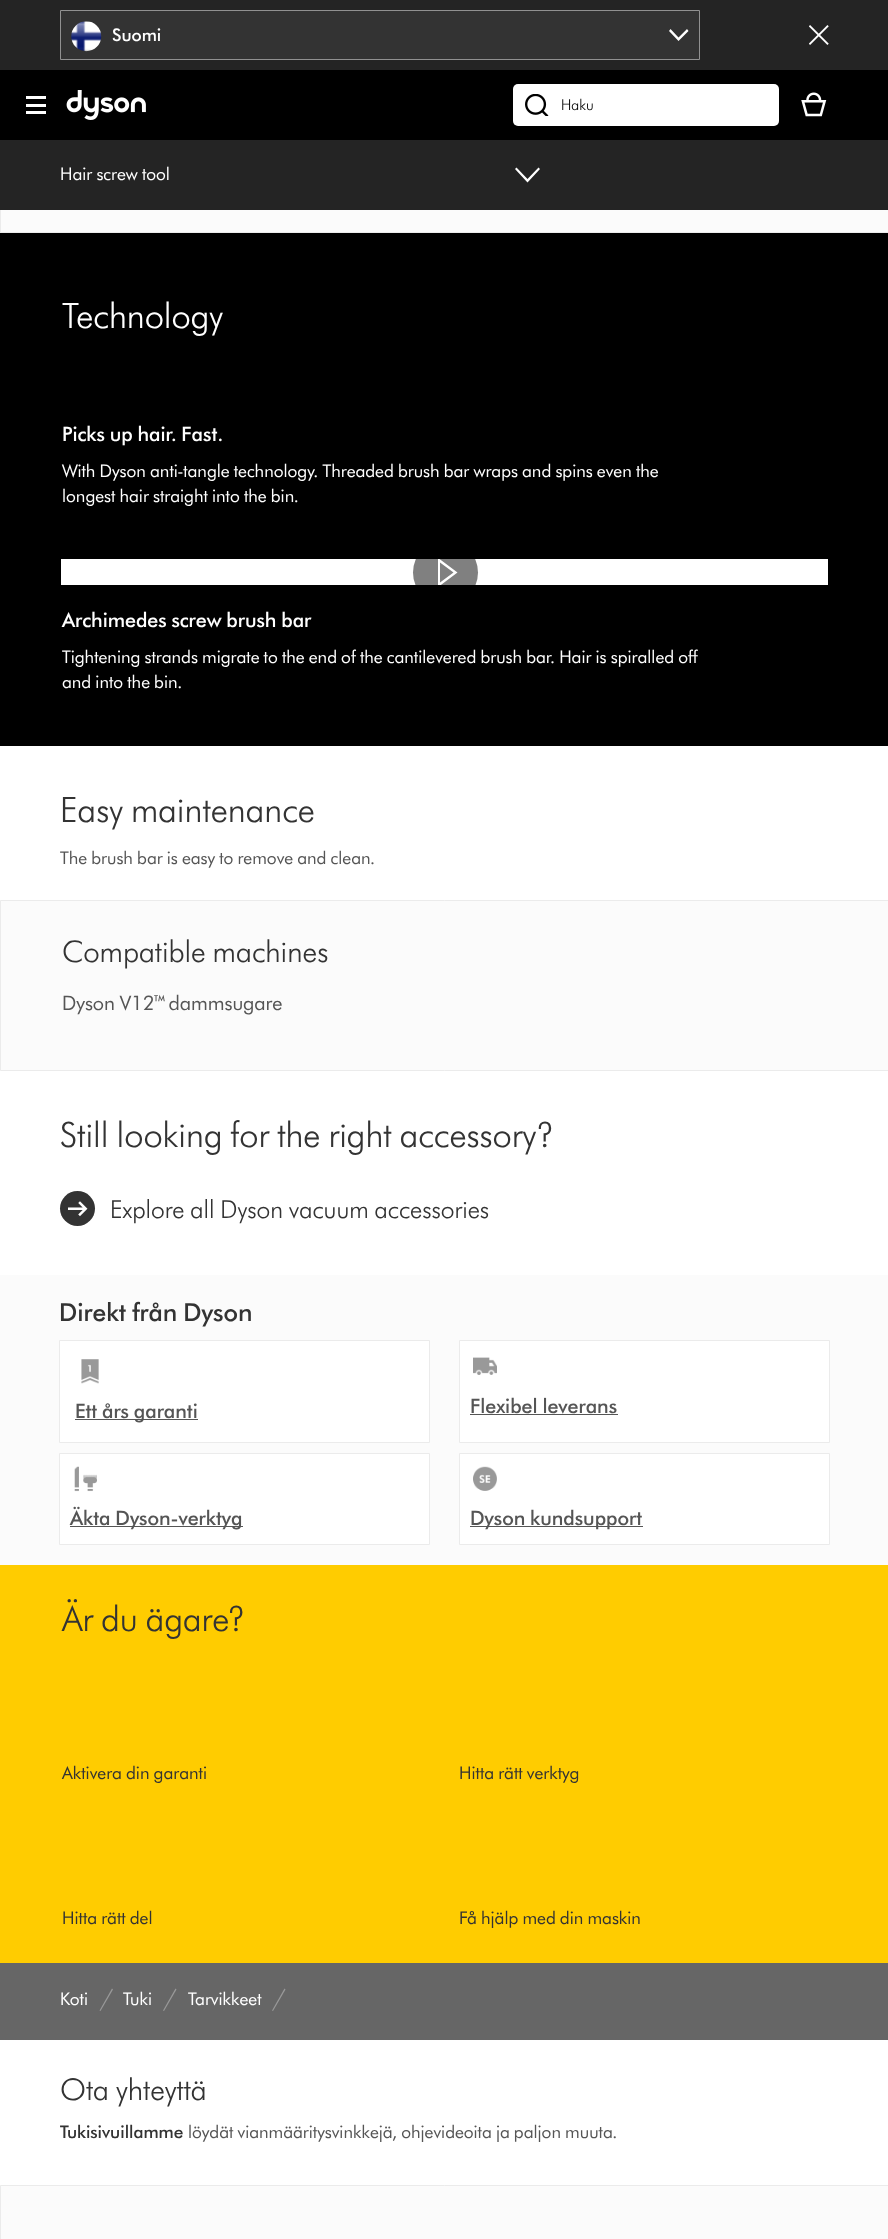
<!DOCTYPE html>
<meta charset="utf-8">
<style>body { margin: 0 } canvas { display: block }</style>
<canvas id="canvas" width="888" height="2239"></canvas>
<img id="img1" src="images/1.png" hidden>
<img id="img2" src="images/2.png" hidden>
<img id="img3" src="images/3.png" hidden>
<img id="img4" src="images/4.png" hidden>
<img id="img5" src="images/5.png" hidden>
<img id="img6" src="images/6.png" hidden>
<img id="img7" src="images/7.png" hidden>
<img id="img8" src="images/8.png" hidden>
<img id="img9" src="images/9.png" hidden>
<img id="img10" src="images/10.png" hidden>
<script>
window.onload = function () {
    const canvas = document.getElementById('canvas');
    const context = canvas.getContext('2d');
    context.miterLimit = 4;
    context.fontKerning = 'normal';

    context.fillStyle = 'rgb(255, 255, 255)';
    context.fillRect(0, 0, 888, 2239);
    context.fillStyle = 'rgb(251, 251, 251)';
    context.fillRect(1, 210, 887, 22);
    context.strokeStyle = 'rgb(235, 235, 235)';
    context.strokeRect(0.5, -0.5, 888, 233);
    context.fillStyle = 'rgb(0, 0, 0)';
    context.fillRect(0, 70, 888, 70);
    context.fillStyle = 'rgb(36, 36, 36)';
    context.fillRect(0, 0, 888, 70);
    context.fillStyle = 'rgb(51, 51, 51)';
    context.beginPath();
    context.rect(60.5, 10.5, 639, 49);
    context.fill();
    context.strokeStyle = 'rgb(145, 145, 145)';
    context.stroke();
    context.drawImage(document.getElementById('img1'), 71, 21, 31, 31);
    context.fillStyle = 'rgb(255, 255, 255)';
    context.beginPath();
    context.moveTo(678.5, 41);
    context.lineTo(669, 31);
    context.lineTo(670.5, 29);
    context.lineTo(678.5, 37.5);
    context.lineTo(687, 29);
    context.lineTo(688.5, 31);
    context.closePath();
    context.fill();
    context.drawImage(document.getElementById('img2'), 809, 25, 20, 20);
    context.fillRect(26, 104, 20, 3);
    context.fillRect(26, 96, 20, 3);
    context.fillRect(26, 111, 20, 3);
    context.drawImage(document.getElementById('img3'), 66, 90, 80, 30);
    context.beginPath();
    context.roundRect(513, 84, 266, 42, 5);
    context.fill();
    context.drawImage(document.getElementById('img4'), 525, 94, 24, 22);
    context.drawImage(document.getElementById('img5'), 801, 92, 26, 25);
    context.fillStyle = 'rgb(36, 36, 36)';
    context.fillRect(0, 140, 888, 70);
    context.fillStyle = 'rgb(255, 255, 255)';
    context.beginPath();
    context.moveTo(538.5, 167.5);
    context.lineTo(527.5, 179);
    context.lineTo(516.5, 167.5);
    context.lineTo(515, 169);
    context.lineTo(527.5, 182.5);
    context.lineTo(540, 169);
    context.closePath();
    context.fill();
    context.fillStyle = 'rgb(0, 0, 0)';
    context.fillRect(0, 233, 888, 513);
    context.fillStyle = 'rgb(255, 255, 255)';
    context.fillRect(61, 559, 767, 26);
    context.save();
    context.beginPath();
    context.rect(61, 559, 767, 26);
    context.clip();
    context.fillStyle = 'rgb(128, 128, 128)';
    context.beginPath();
    context.arc(445.5, 572.5, 32.5, 0, 2 * Math.PI);
    context.fill();
    context.restore();
    context.save();
    context.beginPath();
    context.rect(438, 559, 20, 26);
    context.clip();
    context.beginPath();
    context.moveTo(437.5, 557.5);
    context.lineTo(437.5, 587.5);
    context.lineTo(457.5, 572.5);
    context.closePath();
    context.moveTo(440, 562.5);
    context.lineTo(453.5, 572.5);
    context.lineTo(440, 582.5);
    context.closePath();
    context.fill();
    context.restore();
    context.fillStyle = 'rgb(251, 251, 251)';
    context.beginPath();
    context.rect(0.5, 900.5, 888, 170);
    context.fill();
    context.strokeStyle = 'rgb(235, 235, 235)';
    context.stroke();
    context.fillStyle = 'rgb(51, 51, 51)';
    context.beginPath();
    context.arc(77.5, 1208.5, 17.5, 0, 2 * Math.PI);
    context.fill();
    context.drawImage(document.getElementById('img6'), 68, 1201, 20, 16);
    context.fillStyle = 'rgb(251, 251, 251)';
    context.fillRect(0, 1275, 888, 290);
    context.fillStyle = 'rgb(255, 255, 255)';
    context.beginPath();
    context.rect(59.5, 1340.5, 370, 102);
    context.fill();
    context.stroke();
    context.drawImage(document.getElementById('img7'), 81, 1359, 18, 25);
    context.fillStyle = 'rgb(85, 85, 85)';
    context.fillRect(75, 1419, 123, 1);
    context.fillStyle = 'rgb(255, 255, 255)';
    context.beginPath();
    context.rect(459.5, 1340.5, 370, 102);
    context.fill();
    context.stroke();
    context.drawImage(document.getElementById('img8'), 473, 1357, 24, 18);
    context.fillStyle = 'rgb(85, 85, 85)';
    context.fillRect(470, 1414, 148, 1);
    context.fillStyle = 'rgb(255, 255, 255)';
    context.beginPath();
    context.rect(59.5, 1453.5, 370, 91);
    context.fill();
    context.stroke();
    context.drawImage(document.getElementById('img9'), 74, 1466, 23, 26);
    context.fillStyle = 'rgb(85, 85, 85)';
    context.fillRect(70, 1526, 173, 1);
    context.fillStyle = 'rgb(255, 255, 255)';
    context.beginPath();
    context.rect(459.5, 1453.5, 370, 91);
    context.fill();
    context.stroke();
    context.drawImage(document.getElementById('img10'), 473, 1466, 24, 25);
    context.fillStyle = 'rgb(85, 85, 85)';
    context.fillRect(470, 1526, 173, 1);
    context.fillStyle = 'rgb(255, 204, 0)';
    context.fillRect(0, 1565, 888, 398);
    context.fillStyle = 'rgb(102, 102, 102)';
    context.fillRect(0, 1963, 888, 77);
    context.fillStyle = 'rgb(153, 153, 153)';
    context.beginPath();
    context.moveTo(112, 1988.5);
    context.lineTo(113, 1989.5);
    context.lineTo(100.5, 2011);
    context.lineTo(99.5, 2010.5);
    context.closePath();
    context.fill('evenodd');
    context.beginPath();
    context.moveTo(175.5, 1988.5);
    context.lineTo(176.5, 1989.5);
    context.lineTo(164, 2011);
    context.lineTo(163, 2010.5);
    context.closePath();
    context.fill('evenodd');
    context.beginPath();
    context.moveTo(284.5, 1988.5);
    context.lineTo(285.5, 1989.5);
    context.lineTo(273, 2011);
    context.lineTo(272, 2010.5);
    context.closePath();
    context.fill('evenodd');
    context.fillStyle = 'rgb(251, 251, 251)';
    context.beginPath();
    context.rect(0.5, 2185.5, 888, 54);
    context.fill();
    context.stroke();
    context.font = '500 17.5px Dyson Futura';
    context.fillStyle = 'rgb(255, 255, 255)';
    context.fillText('Suomi', 112, 41);
    context.font = '300 15px Dyson Futura';
    context.fillStyle = 'rgb(0, 0, 0)';
    context.fillText('Haku', 561, 110);
    context.font = '17.5px Dyson Futura';
    context.fillStyle = 'rgb(255, 255, 255)';
    context.fillText('Hair screw tool', 60, 180);
    context.font = '300 35px Dyson Futura';
    context.fillText('Technology', 62, 328);
    context.font = '500 20px Dyson Futura';
    context.fillText('Picks up hair. Fast.', 62, 441);
    context.font = '17.5px Dyson Futura';
    context.fillText('With Dyson anti-tangle technology. Threaded brush bar wraps and spins even the', 62, 477);
    context.fillText('longest hair straight into the bin.', 62, 502);
    context.font = '500 20px Dyson Futura';
    context.fillText('Archimedes screw brush bar', 62, 627);
    context.font = '17.5px Dyson Futura';
    context.fillText('Tightening strands migrate to the end of the cantilevered brush bar. Hair is spiralled off', 62, 663);
    context.fillText('and into the bin.', 62, 688);
    context.font = '300 35px Dyson Futura';
    context.fillStyle = 'rgb(51, 51, 51)';
    context.fillText('Easy maintenance', 60, 822);
    context.font = '17.5px Dyson Futura';
    context.fillStyle = 'rgb(85, 85, 85)';
    context.fillText('The brush bar is easy to remove and clean.', 60, 864);
    context.font = '300 30px Dyson Futura';
    context.fillStyle = 'rgb(51, 51, 51)';
    context.fillText('Compatible machines', 62, 962);
    context.font = '20px Dyson Futura';
    context.fillStyle = 'rgb(85, 85, 85)';
    context.fillText('Dyson V12™ dammsugare', 62, 1010);
    context.font = '300 35px Dyson Futura';
    context.fillStyle = 'rgb(51, 51, 51)';
    context.fillText('Still looking for the right accessory?', 60, 1147);
    context.font = '300 25px Dyson Futura';
    context.fillText('Explore all Dyson vacuum accessories', 110, 1218);
    context.font = '500 25px Dyson Futura';
    context.fillText('Direkt från Dyson', 59, 1321);
    context.font = '500 20px Dyson Futura';
    context.fillStyle = 'rgb(85, 85, 85)';
    context.fillText('Ett års garanti', 75, 1418);
    context.fillText('Flexibel leverans', 470, 1413);
    context.fillText('Äkta Dyson-verktyg', 70, 1525);
    context.fillText('Dyson kundsupport', 470, 1525);
    context.font = '300 35px Dyson Futura';
    context.fillStyle = 'rgb(51, 51, 51)';
    context.fillText('Är du ägare?', 62, 1631);
    context.font = '17.5px Dyson Futura';
    context.fillText('Aktivera din garanti', 62, 1779);
    context.fillText('Hitta rätt verktyg', 459, 1779);
    context.fillText('Hitta rätt del', 62, 1924);
    context.fillText('Få hjälp med din maskin', 459, 1924);
    context.fillStyle = 'rgb(255, 255, 255)';
    context.fillText('Koti', 60, 2005);
    context.fillText('Tuki', 123, 2005);
    context.fillText('Tarvikkeet', 188, 2005);
    context.font = '300 30px Dyson Futura';
    context.fillStyle = 'rgb(51, 51, 51)';
    context.fillText('Ota yhteyttä', 60, 2100);
    context.font = '500 17.5px Dyson Futura';
    context.fillText('Tukisivuillamme', 60, 2138);
    context.font = '17.5px Dyson Futura';
    context.fillStyle = 'rgb(85, 85, 85)';
    context.fillText('löydät vianmääritysvinkkejä, ohjevideoita ja paljon muuta.', 188, 2138);
};
</script>
